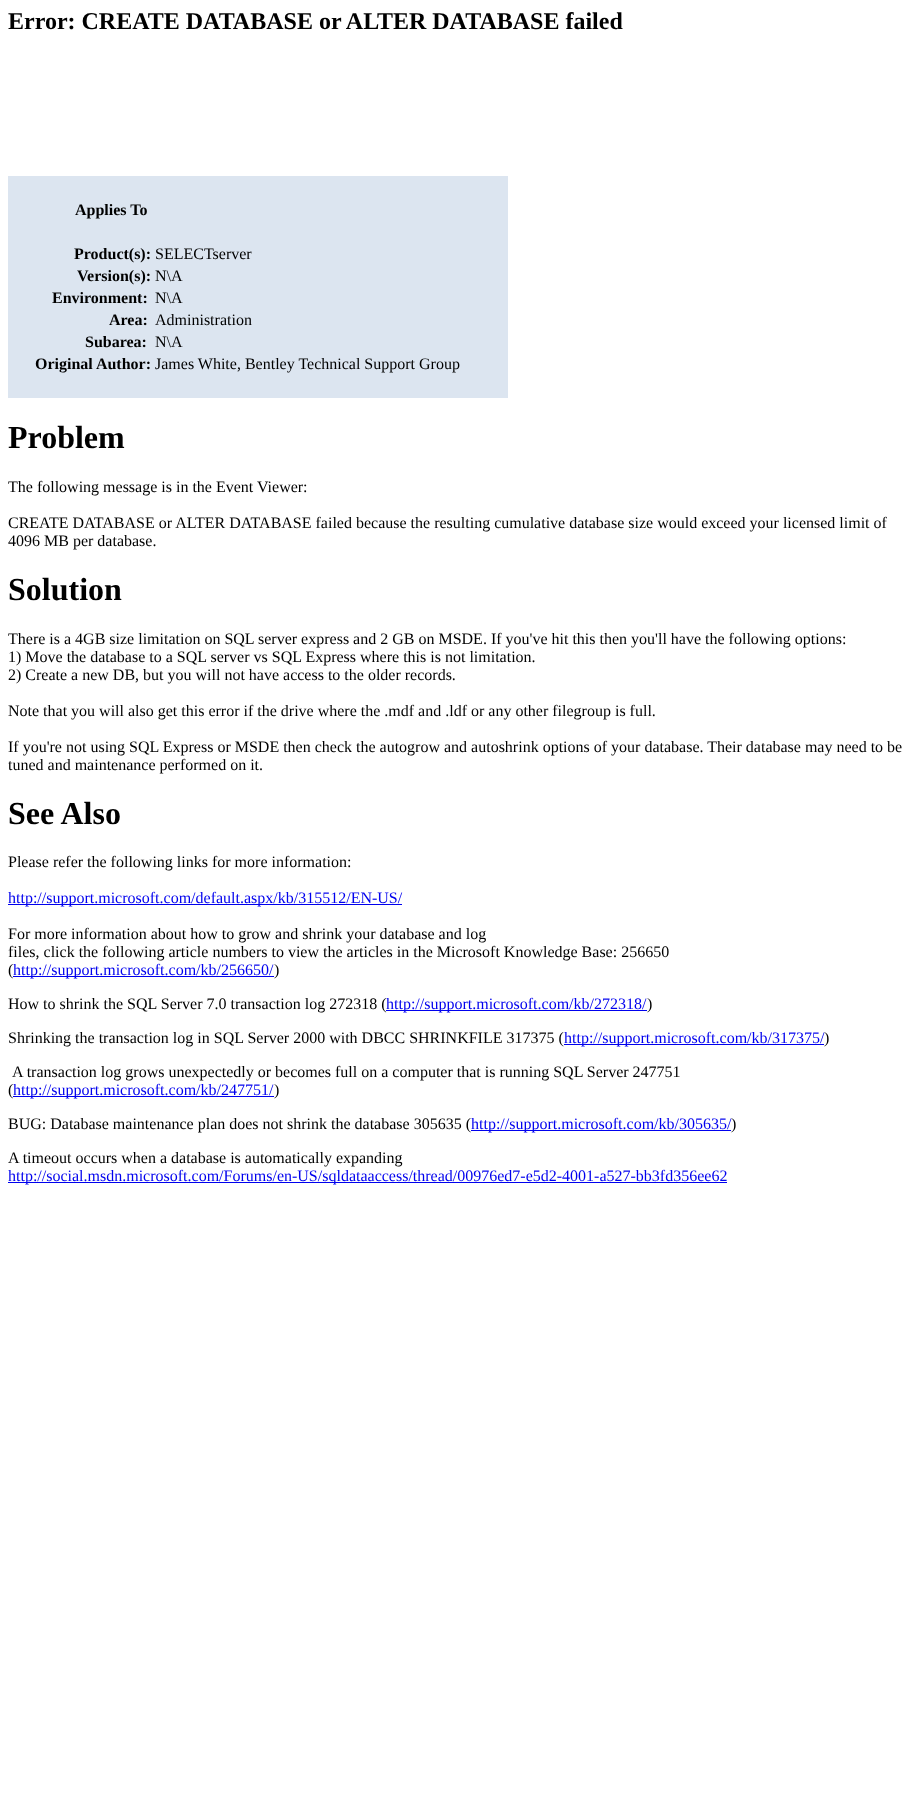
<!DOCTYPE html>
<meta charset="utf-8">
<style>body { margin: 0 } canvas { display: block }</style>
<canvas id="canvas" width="920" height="1809"></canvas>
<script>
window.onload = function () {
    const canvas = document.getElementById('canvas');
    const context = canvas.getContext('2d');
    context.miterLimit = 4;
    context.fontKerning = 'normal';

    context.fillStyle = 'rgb(255, 255, 255)';
    context.fillRect(0, 0, 920, 1809);
    context.fillStyle = 'rgb(220, 229, 240)';
    context.fillRect(8, 176, 500, 222);
    context.fillStyle = 'rgb(0, 0, 238)';
    context.fillRect(8, 904, 394, 1);
    context.fillRect(13, 976, 261, 1);
    context.fillRect(386, 1010, 261, 1);
    context.fillRect(564, 1044, 260, 1);
    context.fillRect(13, 1096, 261, 1);
    context.fillRect(471, 1130, 260, 1);
    context.fillRect(8, 1182, 719, 1);
    context.font = 'bold 24px Liberation Serif';
    context.fillStyle = 'rgb(0, 0, 0)';
    context.fillText('Error: CREATE DATABASE or ALTER DATABASE failed', 8, 29);
    context.font = 'bold 16px Liberation Serif';
    context.fillText('Applies To', 75, 215);
    context.fillText('Product(s):', 74, 259);
    context.font = '16px Liberation Serif';
    context.fillText('SELECTserver', 155, 259);
    context.font = 'bold 16px Liberation Serif';
    context.fillText('Version(s):', 77, 281);
    context.font = '16px Liberation Serif';
    context.fillText('N\\A', 155, 281);
    context.font = 'bold 16px Liberation Serif';
    context.fillText('Environment:', 52, 303);
    context.font = '16px Liberation Serif';
    context.fillText('N\\A', 155, 303);
    context.font = 'bold 16px Liberation Serif';
    context.fillText('Area:', 109, 325);
    context.font = '16px Liberation Serif';
    context.fillText('Administration', 155, 325);
    context.font = 'bold 16px Liberation Serif';
    context.fillText('Subarea:', 85, 347);
    context.font = '16px Liberation Serif';
    context.fillText('N\\A', 155, 347);
    context.font = 'bold 16px Liberation Serif';
    context.fillText('Original Author:', 35, 369);
    context.font = '16px Liberation Serif';
    context.fillText('James White, Bentley Technical Support Group', 155, 369);
    context.font = 'bold 32px Liberation Serif';
    context.fillText('Problem', 8, 448);
    context.font = '16px Liberation Serif';
    context.fillText('The following message is in the Event Viewer:', 8, 492);
    context.fillText('CREATE DATABASE or ALTER DATABASE failed because the resulting cumulative database size would exceed your licensed limit of', 8, 528);
    context.fillText('4096 MB per database.', 8, 546);
    context.font = 'bold 32px Liberation Serif';
    context.fillText('Solution', 8, 600);
    context.font = '16px Liberation Serif';
    context.fillText('There is a 4GB size limitation on SQL server express and 2 GB on MSDE. If you\'ve hit this then you\'ll have the following options:', 8, 644);
    context.fillText('1) Move the database to a SQL server vs SQL Express where this is not limitation.', 8, 662);
    context.fillText('2) Create a new DB, but you will not have access to the older records.', 8, 680);
    context.fillText('Note that you will also get this error if the drive where the .mdf and .ldf or any other filegroup is full.', 8, 716);
    context.fillText('If you\'re not using SQL Express or MSDE then check the autogrow and autoshrink options of your database. Their database may need to be', 8, 752);
    context.fillText('tuned and maintenance performed on it.', 8, 770);
    context.font = 'bold 32px Liberation Serif';
    context.fillText('See Also', 8, 824);
    context.font = '16px Liberation Serif';
    context.fillText('Please refer the following links for more information:', 8, 867);
    context.fillStyle = 'rgb(0, 0, 238)';
    context.fillText('http://support.microsoft.com/default.aspx/kb/315512/EN-US/', 8, 903);
    context.fillStyle = 'rgb(0, 0, 0)';
    context.fillText('For more information about how to grow and shrink your database and log', 8, 939);
    context.fillText('files, click the following article numbers to view the articles in the Microsoft Knowledge Base: 256650', 8, 957);
    context.fillText('(', 8, 975);
    context.fillStyle = 'rgb(0, 0, 238)';
    context.fillText('http://support.microsoft.com/kb/256650/', 13, 975);
    context.fillStyle = 'rgb(0, 0, 0)';
    context.fillText(')', 274, 975);
    context.fillText('How to shrink the SQL Server 7.0 transaction log 272318 (', 8, 1009);
    context.fillStyle = 'rgb(0, 0, 238)';
    context.fillText('http://support.microsoft.com/kb/272318/', 386, 1009);
    context.fillStyle = 'rgb(0, 0, 0)';
    context.fillText(')', 647, 1009);
    context.fillText('Shrinking the transaction log in SQL Server 2000 with DBCC SHRINKFILE 317375 (', 8, 1043);
    context.fillStyle = 'rgb(0, 0, 238)';
    context.fillText('http://support.microsoft.com/kb/317375/', 564, 1043);
    context.fillStyle = 'rgb(0, 0, 0)';
    context.fillText(')', 824, 1043);
    context.fillText('A transaction log grows unexpectedly or becomes full on a computer that is running SQL Server 247751', 12, 1077);
    context.fillText('(', 8, 1095);
    context.fillStyle = 'rgb(0, 0, 238)';
    context.fillText('http://support.microsoft.com/kb/247751/', 13, 1095);
    context.fillStyle = 'rgb(0, 0, 0)';
    context.fillText(')', 274, 1095);
    context.fillText('BUG: Database maintenance plan does not shrink the database 305635 (', 8, 1129);
    context.fillStyle = 'rgb(0, 0, 238)';
    context.fillText('http://support.microsoft.com/kb/305635/', 471, 1129);
    context.fillStyle = 'rgb(0, 0, 0)';
    context.fillText(')', 731, 1129);
    context.fillText('A timeout occurs when a database is automatically expanding', 8, 1163);
    context.fillStyle = 'rgb(0, 0, 238)';
    context.fillText('http://social.msdn.microsoft.com/Forums/en-US/sqldataaccess/thread/00976ed7-e5d2-4001-a527-bb3fd356ee62', 8, 1181);
};
</script>
